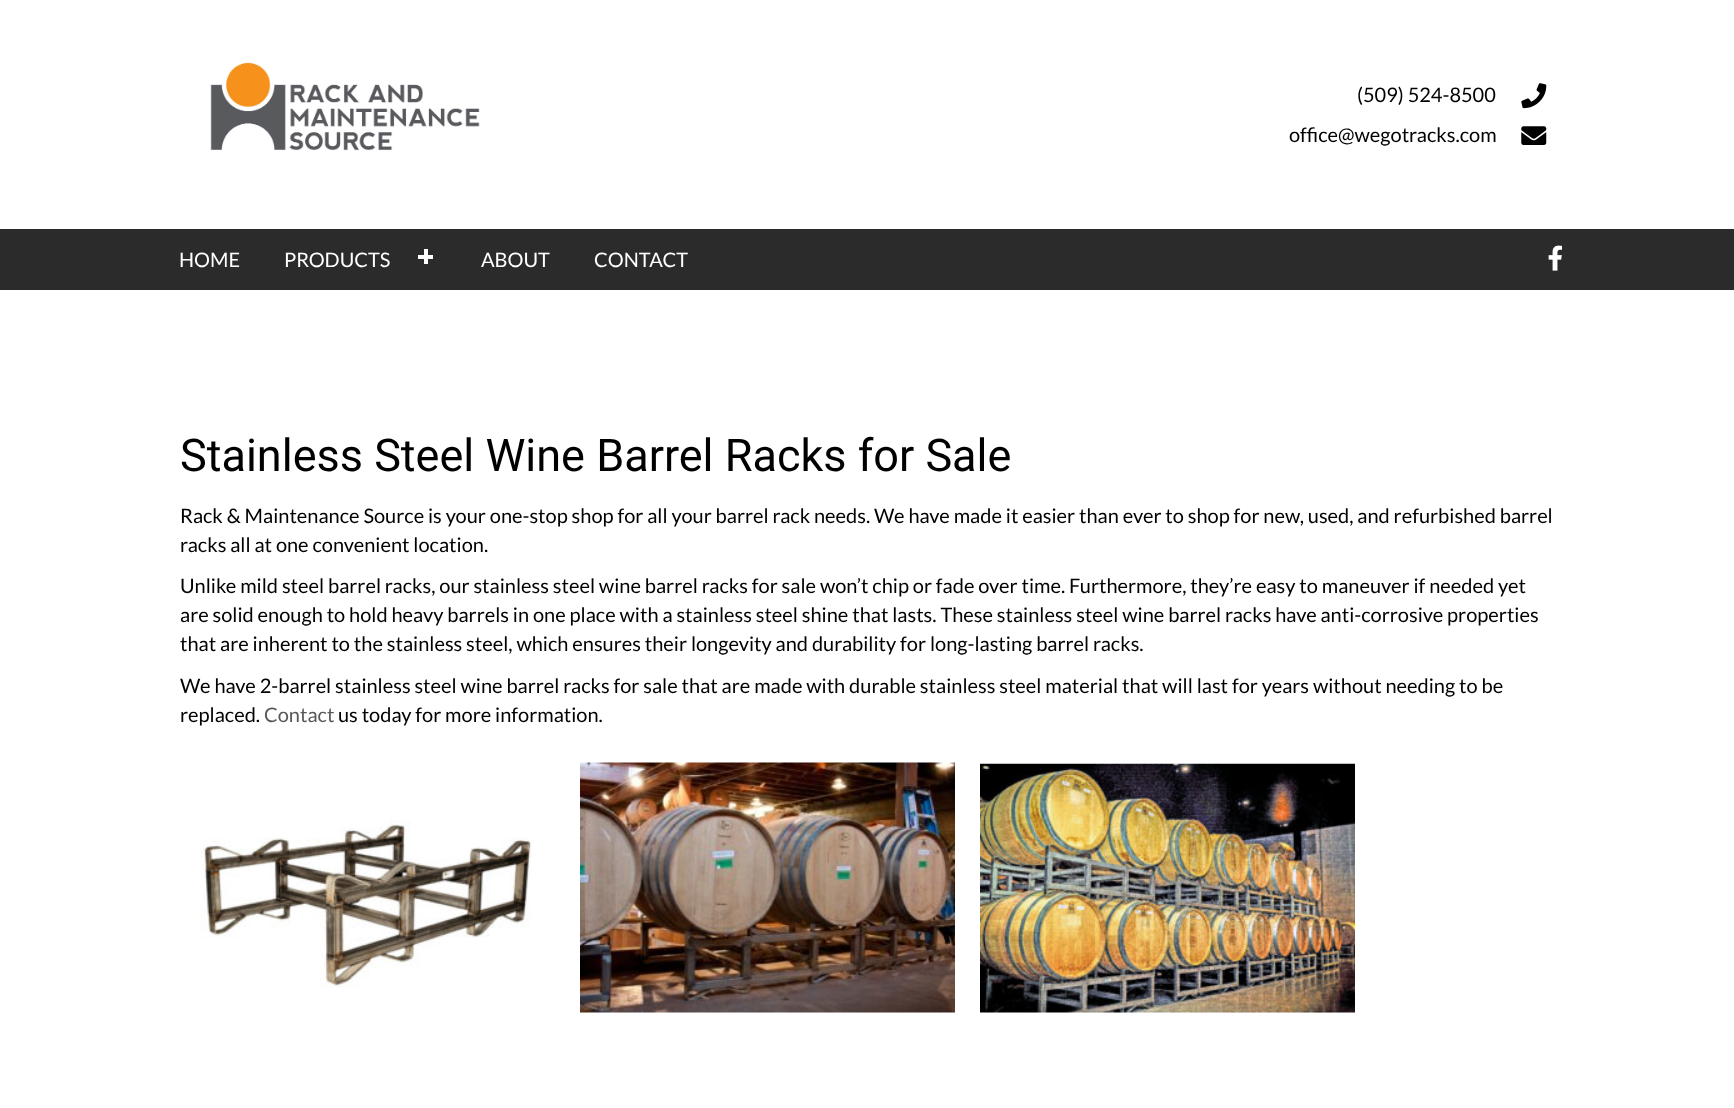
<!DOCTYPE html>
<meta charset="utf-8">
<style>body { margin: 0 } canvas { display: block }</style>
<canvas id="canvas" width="1734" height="1108"></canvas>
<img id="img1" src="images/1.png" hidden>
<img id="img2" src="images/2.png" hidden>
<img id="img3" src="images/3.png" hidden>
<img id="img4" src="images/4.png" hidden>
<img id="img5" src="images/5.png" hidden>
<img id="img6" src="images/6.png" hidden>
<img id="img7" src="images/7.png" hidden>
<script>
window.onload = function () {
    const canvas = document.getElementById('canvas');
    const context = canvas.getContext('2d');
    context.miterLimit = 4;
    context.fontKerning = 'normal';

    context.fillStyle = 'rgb(255, 255, 255)';
    context.fillRect(0, 0, 1734, 1108);
    context.drawImage(document.getElementById('img1'), 210, 62, 270, 89);
    context.drawImage(document.getElementById('img2'), 1521, 83, 26, 26);
    context.drawImage(document.getElementById('img3'), 1521, 126, 26, 19);
    context.fillStyle = 'rgb(43, 43, 43)';
    context.fillRect(0, 229, 1734, 61);
    context.fillStyle = 'rgb(255, 255, 255)';
    context.fillRect(418, 255, 15, 4);
    context.fillRect(424, 249, 4, 15);
    context.drawImage(document.getElementById('img4'), 1548, 245, 14, 26);
    context.drawImage(document.getElementById('img5'), 200, 820, 332, 168);
    context.drawImage(document.getElementById('img6'), 580, 762, 375, 251);
    context.drawImage(document.getElementById('img7'), 980, 763, 375, 250);
    context.font = '20px Lato';
    context.fillStyle = 'rgb(0, 0, 0)';
    context.fillText('(509) 524-8500', 1357, 102);
    context.fillText('office@wegotracks.com', 1289, 142);
    context.fillStyle = 'rgb(255, 255, 255)';
    context.fillText('HOME', 179, 267);
    context.fillText('PRODUCTS', 284, 267);
    context.fillText('ABOUT', 481, 267);
    context.fillText('CONTACT', 594, 267);
    context.font = '45px Roboto';
    context.fillStyle = 'rgb(0, 0, 0)';
    context.fillText('Stainless Steel Wine Barrel Racks for Sale', 180, 471);
    context.font = '20px Lato';
    context.fillText('Rack & Maintenance Source is your one-stop shop for all your barrel rack needs. We have made it easier than ever to shop for new, used, and refurbished barrel', 180, 523);
    context.fillText('racks all at one convenient location.', 180, 552);
    context.fillText('Unlike mild steel barrel racks, our stainless steel wine barrel racks for sale won’t chip or fade over time. Furthermore, they’re easy to maneuver if needed yet', 180, 593);
    context.fillText('are solid enough to hold heavy barrels in one place with a stainless steel shine that lasts. These stainless steel wine barrel racks have anti-corrosive properties', 180, 622);
    context.fillText('that are inherent to the stainless steel, which ensures their longevity and durability for long-lasting barrel racks.', 180, 651);
    context.fillText('We have 2-barrel stainless steel wine barrel racks for sale that are made with durable stainless steel material that will last for years without needing to be', 180, 693);
    context.fillText('replaced.', 180, 722);
    context.fillStyle = 'rgb(88, 88, 90)';
    context.fillText('Contact', 264, 722);
    context.fillStyle = 'rgb(0, 0, 0)';
    context.fillText('us today for more information.', 338, 722);
};
</script>
